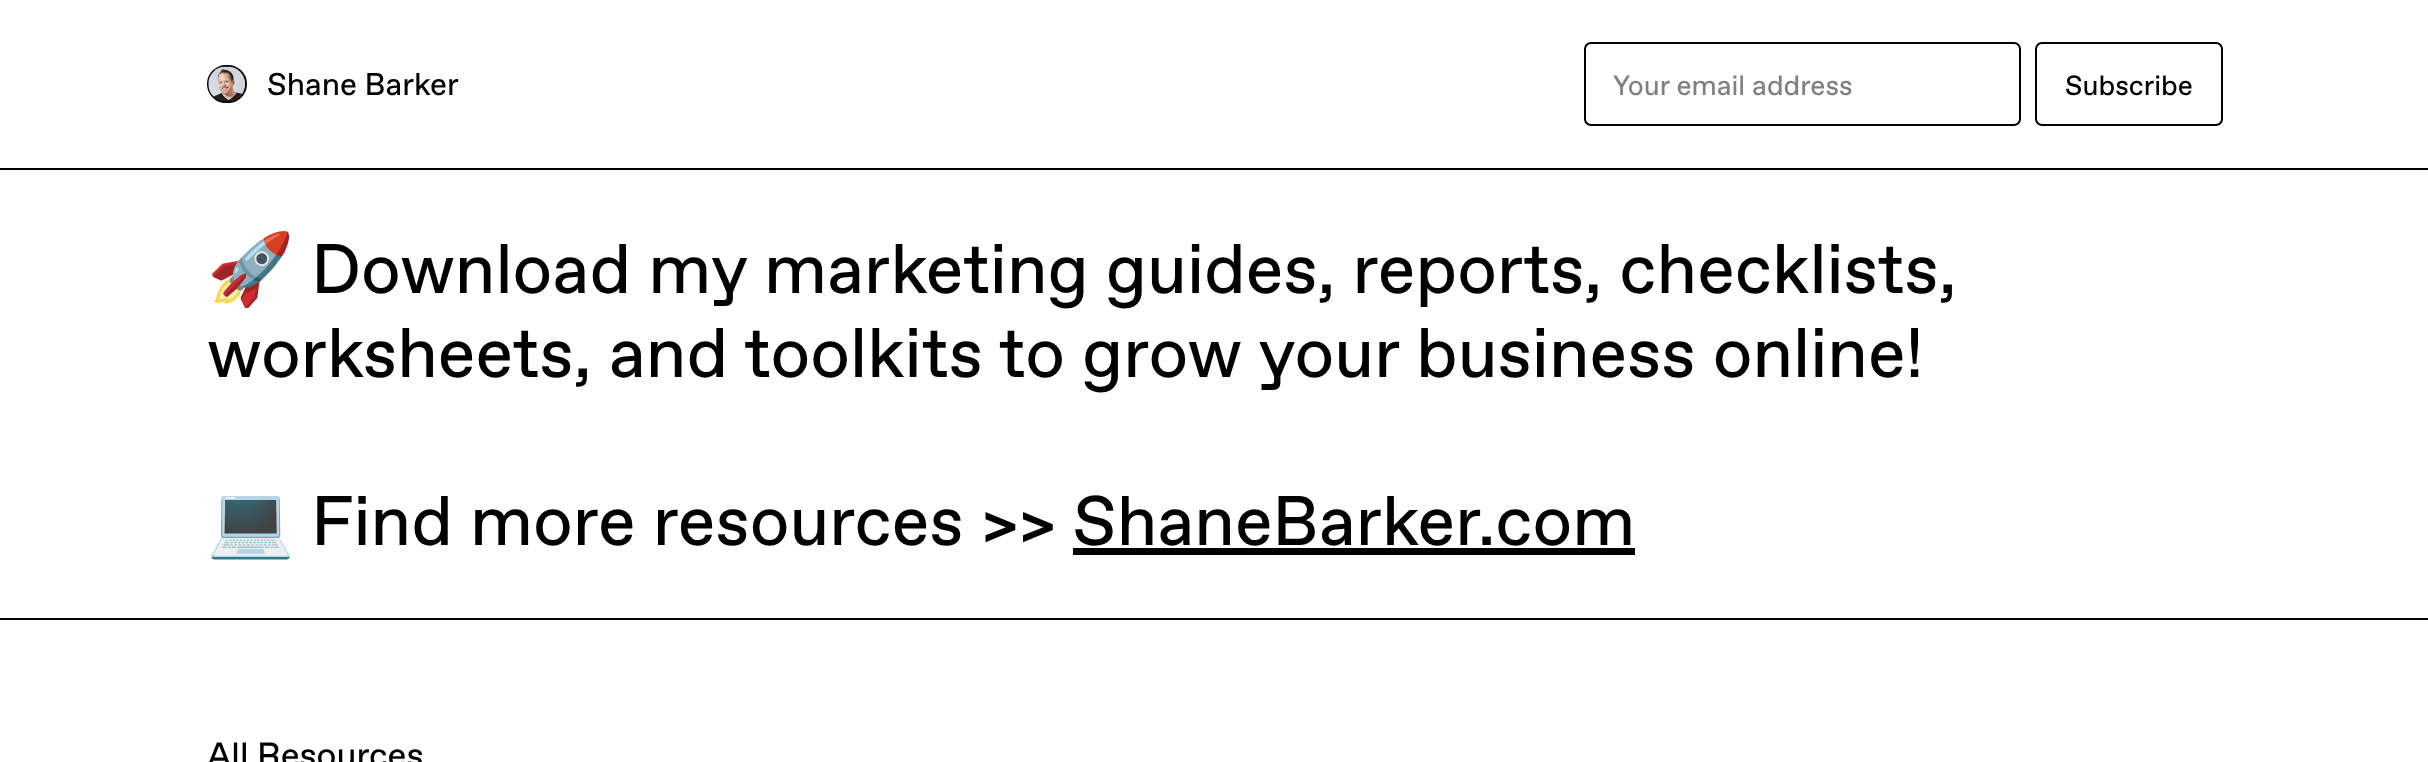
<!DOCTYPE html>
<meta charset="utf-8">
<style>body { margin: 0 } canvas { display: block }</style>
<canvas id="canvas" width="2428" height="762"></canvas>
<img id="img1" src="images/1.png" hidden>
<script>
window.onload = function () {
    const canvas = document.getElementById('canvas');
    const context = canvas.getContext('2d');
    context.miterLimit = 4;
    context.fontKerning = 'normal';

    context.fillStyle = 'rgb(255, 255, 255)';
    context.fillRect(0, 0, 2428, 762);
    context.fillStyle = 'rgb(0, 0, 0)';
    context.fillRect(0, 168, 2428, 2);
    context.beginPath();
    context.roundRect(208, 66, 38, 36, 18);
    context.strokeStyle = 'rgb(0, 0, 0)';
    context.lineWidth = 2;
    context.stroke();
    context.drawImage(document.getElementById('img1'), 208, 66, 37, 36);
    context.beginPath();
    context.roundRect(1585, 43, 435, 82, 6);
    context.stroke();
    context.beginPath();
    context.roundRect(2036, 43, 186, 82, 6);
    context.stroke();
    context.fillRect(0, 618, 2428, 2);
    context.fillRect(1073, 548, 562, 7);
    context.font = '31.5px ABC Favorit';
    context.fillText('Shane Barker', 267, 95);
    context.font = '28px ABC Favorit';
    context.fillStyle = 'rgb(128, 128, 128)';
    context.fillText('Your email address', 1613, 95);
    context.fillStyle = 'rgb(0, 0, 0)';
    context.fillText('Subscribe', 2065, 95);
    context.font = '70px Noto Color Emoji';
    context.fillText('🚀', 207, 293);
    context.font = '70px ABC Favorit';
    context.fillText('Download my marketing guides, reports, checklists,', 311, 293);
    context.fillText('worksheets, and toolkits to grow your business online!', 207, 377);
    context.font = '70px Noto Color Emoji';
    context.fillText('💻', 207, 545);
    context.font = '70px ABC Favorit';
    context.fillText('Find more resources >> ShaneBarker.com', 311, 545);
    context.font = '35px ABC Favorit';
    context.fillText('All Resources', 207, 767);
};
</script>
